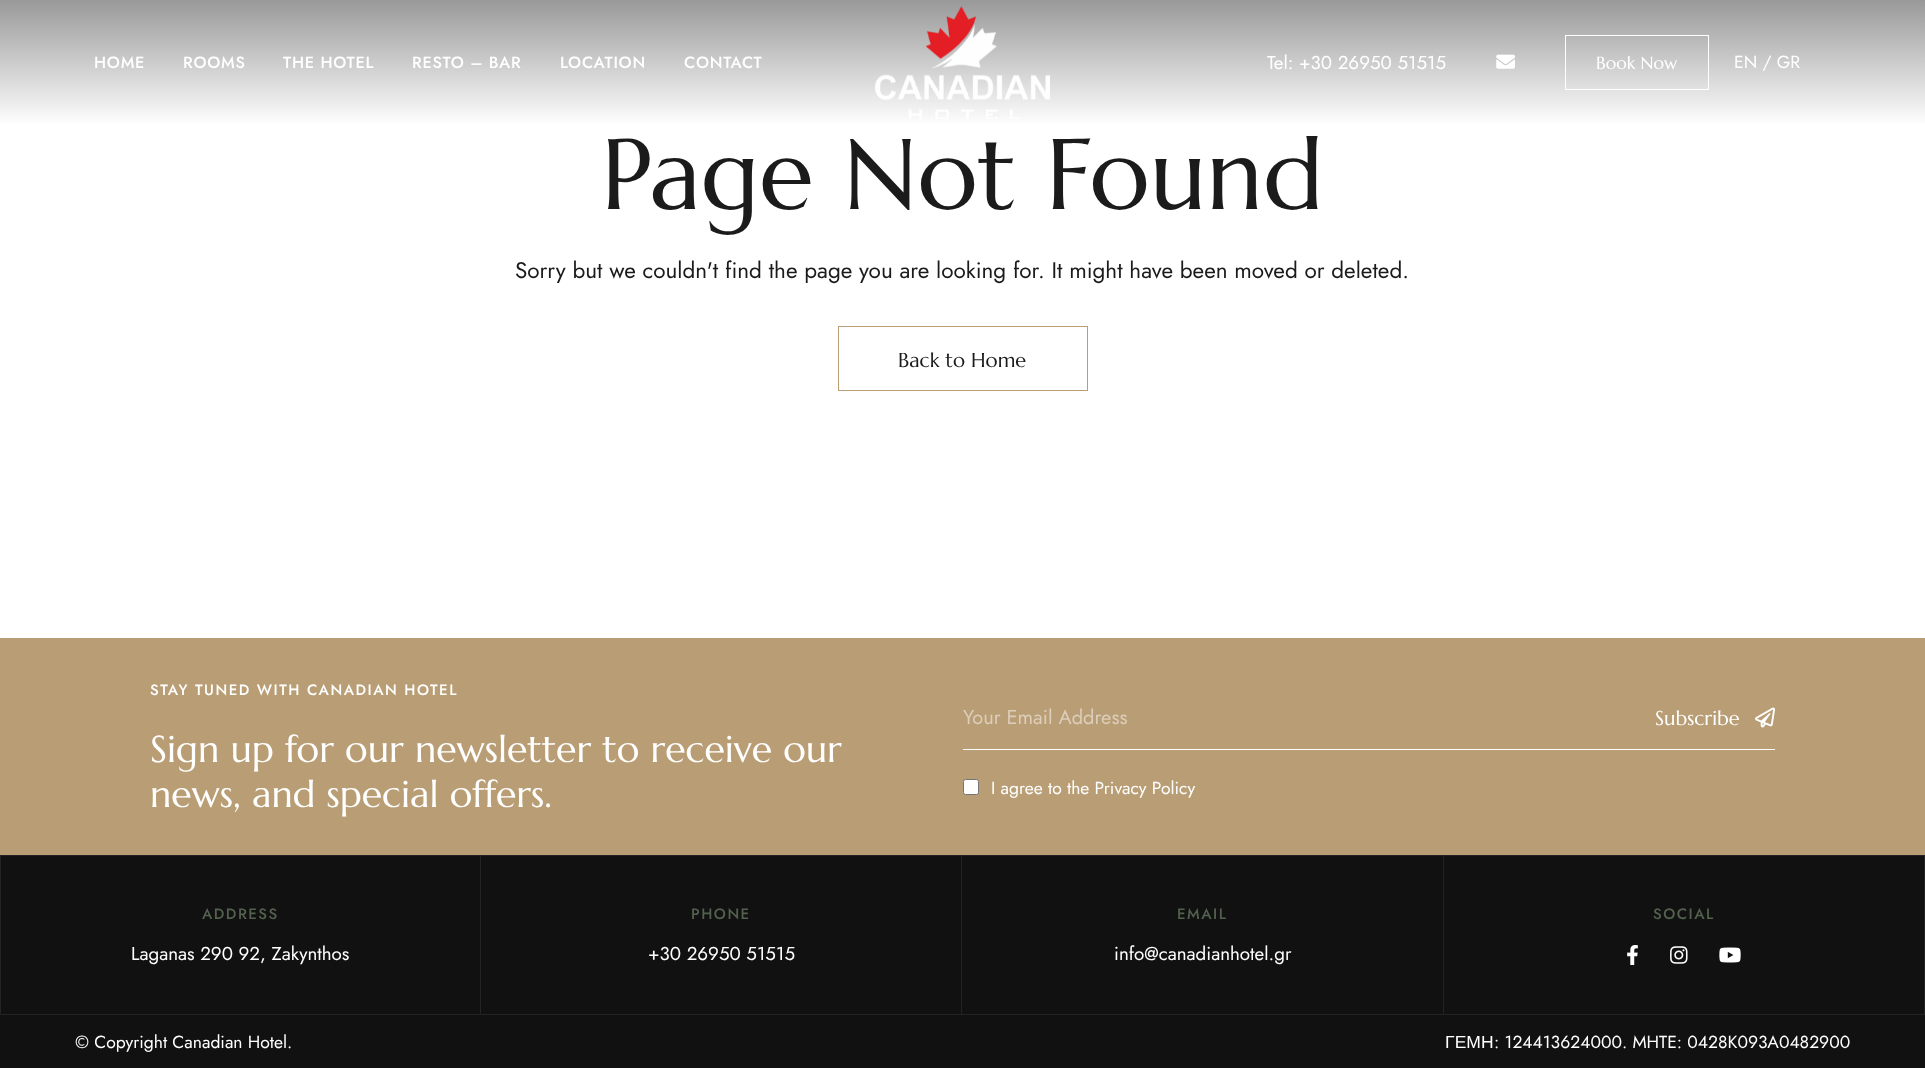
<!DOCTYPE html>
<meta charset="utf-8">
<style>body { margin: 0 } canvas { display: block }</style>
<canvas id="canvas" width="1925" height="1068"></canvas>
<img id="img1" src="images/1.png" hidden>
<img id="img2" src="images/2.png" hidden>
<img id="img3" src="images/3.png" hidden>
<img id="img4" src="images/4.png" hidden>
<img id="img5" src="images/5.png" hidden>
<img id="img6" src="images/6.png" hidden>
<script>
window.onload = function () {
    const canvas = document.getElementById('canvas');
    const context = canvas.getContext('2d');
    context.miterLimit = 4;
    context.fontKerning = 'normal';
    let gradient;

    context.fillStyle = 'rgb(255, 255, 255)';
    context.fillRect(0, 0, 1925, 1068);
    gradient = context.createLinearGradient(963, 0, 963, 126);
    gradient.addColorStop(0, 'rgb(153, 153, 153)');
    gradient.addColorStop(1, 'rgb(255, 255, 255)');
    context.fillStyle = gradient;
    context.fillRect(0, 0, 1925, 123);
    context.drawImage(document.getElementById('img1'), 875, 6, 175, 113);
    context.drawImage(document.getElementById('img2'), 1496, 54, 19, 15);
    context.strokeStyle = 'rgb(255, 255, 255)';
    context.strokeRect(1565.5, 35.5, 143, 54);
    context.strokeStyle = 'rgb(185, 157, 117)';
    context.strokeRect(838.5, 326.5, 249, 64);
    context.fillStyle = 'rgb(185, 157, 117)';
    context.fillRect(0, 638, 1925, 217);
    context.fillStyle = 'rgb(255, 255, 255)';
    context.fillRect(963, 749, 812, 1);
    context.drawImage(document.getElementById('img3'), 1755, 707, 20, 21);
    context.beginPath();
    context.roundRect(963.5, 779.5, 15, 15, 2);
    context.fill();
    context.strokeStyle = 'rgb(118, 118, 118)';
    context.stroke();
    context.fillStyle = 'rgb(17, 17, 17)';
    context.fillRect(1, 856, 1923, 158);
    context.strokeStyle = 'rgb(35, 35, 35)';
    context.strokeRect(0.5, 855.5, 480, 159);
    context.fillStyle = 'rgb(35, 35, 35)';
    context.fillRect(481, 855, 1444, 1);
    context.fillRect(961, 855, 1, 160);
    context.fillRect(481, 1014, 482, 1);
    context.fillRect(1443, 855, 1, 160);
    context.fillRect(963, 1014, 481, 1);
    context.fillRect(1924, 855, 1, 160);
    context.fillRect(1444, 1014, 481, 1);
    context.drawImage(document.getElementById('img4'), 1627, 945, 11, 20);
    context.drawImage(document.getElementById('img5'), 1670, 946, 18, 18);
    context.drawImage(document.getElementById('img6'), 1719, 947, 22, 16);
    context.fillStyle = 'rgb(17, 17, 17)';
    context.fillRect(0, 1015, 1925, 53);
    context.letterSpacing = '0.75px';
    context.font = '500 16.25px Jost';
    context.fillStyle = 'rgb(255, 255, 255)';
    context.fillText('HOME', 94, 68);
    context.fillText('ROOMS', 183, 68);
    context.fillText('THE HOTEL', 283, 68);
    context.fillText('RESTO – BAR', 412, 68);
    context.fillText('LOCATION', 560, 68);
    context.fillText('CONTACT', 684, 68);
    context.letterSpacing = '0px';
    context.font = '18.75px Jost';
    context.fillText('Tel: +30 26950 51515', 1267, 69);
    context.font = '17.5px Marcellus';
    context.fillText('Book Now', 1596, 69);
    context.font = '17.5px Jost';
    context.fillText('EN / GR', 1734, 68);
    context.font = '100px Marcellus';
    context.fillStyle = 'rgb(26, 27, 26)';
    context.fillText('Page Not Found', 601, 209);
    context.font = '22.5px Jost';
    context.fillText('Sorry but we couldn\'t find the page you are looking for. It might have been moved or deleted.', 515, 278);
    context.font = '20px Marcellus';
    context.fillText('Back to Home', 898, 367);
    context.letterSpacing = '1.5px';
    context.font = '500 15px Jost';
    context.fillStyle = 'rgb(255, 255, 255)';
    context.fillText('STAY TUNED WITH CANADIAN HOTEL', 150, 695);
    context.letterSpacing = '0px';
    context.font = '37.5px Marcellus';
    context.fillText('Sign up for our newsletter to receive our', 150, 762);
    context.fillText('news, and special offers.', 150, 807);
    context.font = '20px Jost';
    context.fillStyle = 'rgb(220, 206, 186)';
    context.fillText('Your Email Address', 963, 724);
    context.font = '20px Marcellus';
    context.fillStyle = 'rgb(255, 255, 255)';
    context.fillText('Subscribe', 1655, 725);
    context.font = '17.5px Jost';
    context.fillText('I agree to the Privacy Policy', 991, 794);
    context.letterSpacing = '1.5px';
    context.font = '500 15px Jost';
    context.fillStyle = 'rgb(83, 98, 78)';
    context.fillText('ADDRESS', 202, 919);
    context.letterSpacing = '0px';
    context.font = '18.75px Jost';
    context.fillStyle = 'rgb(255, 255, 255)';
    context.fillText('Laganas 290 92, Zakynthos', 131, 960);
    context.letterSpacing = '1.5px';
    context.font = '500 15px Jost';
    context.fillStyle = 'rgb(83, 98, 78)';
    context.fillText('PHONE', 691, 919);
    context.letterSpacing = '0px';
    context.font = '18.75px Jost';
    context.fillStyle = 'rgb(255, 255, 255)';
    context.fillText('+30 26950 51515', 648, 960);
    context.letterSpacing = '1.5px';
    context.font = '500 15px Jost';
    context.fillStyle = 'rgb(83, 98, 78)';
    context.fillText('EMAIL', 1177, 919);
    context.letterSpacing = '0px';
    context.font = '18.75px Jost';
    context.fillStyle = 'rgb(255, 255, 255)';
    context.fillText('info@canadianhotel.gr', 1114, 960);
    context.letterSpacing = '1.5px';
    context.font = '500 15px Jost';
    context.fillStyle = 'rgb(83, 98, 78)';
    context.fillText('SOCIAL', 1653, 919);
    context.letterSpacing = '0px';
    context.font = '17.5px Jost';
    context.fillStyle = 'rgb(255, 255, 255)';
    context.fillText('© Copyright Canadian Hotel.', 75, 1048);
    context.font = '17.5px Liberation Sans';
    context.fillText('ΓΕΜΗ', 1445, 1048);
    context.font = '17.5px Jost';
    context.fillText(': 124413624000. MHTE: 0428K093A0482900', 1494, 1048);
};
</script>
